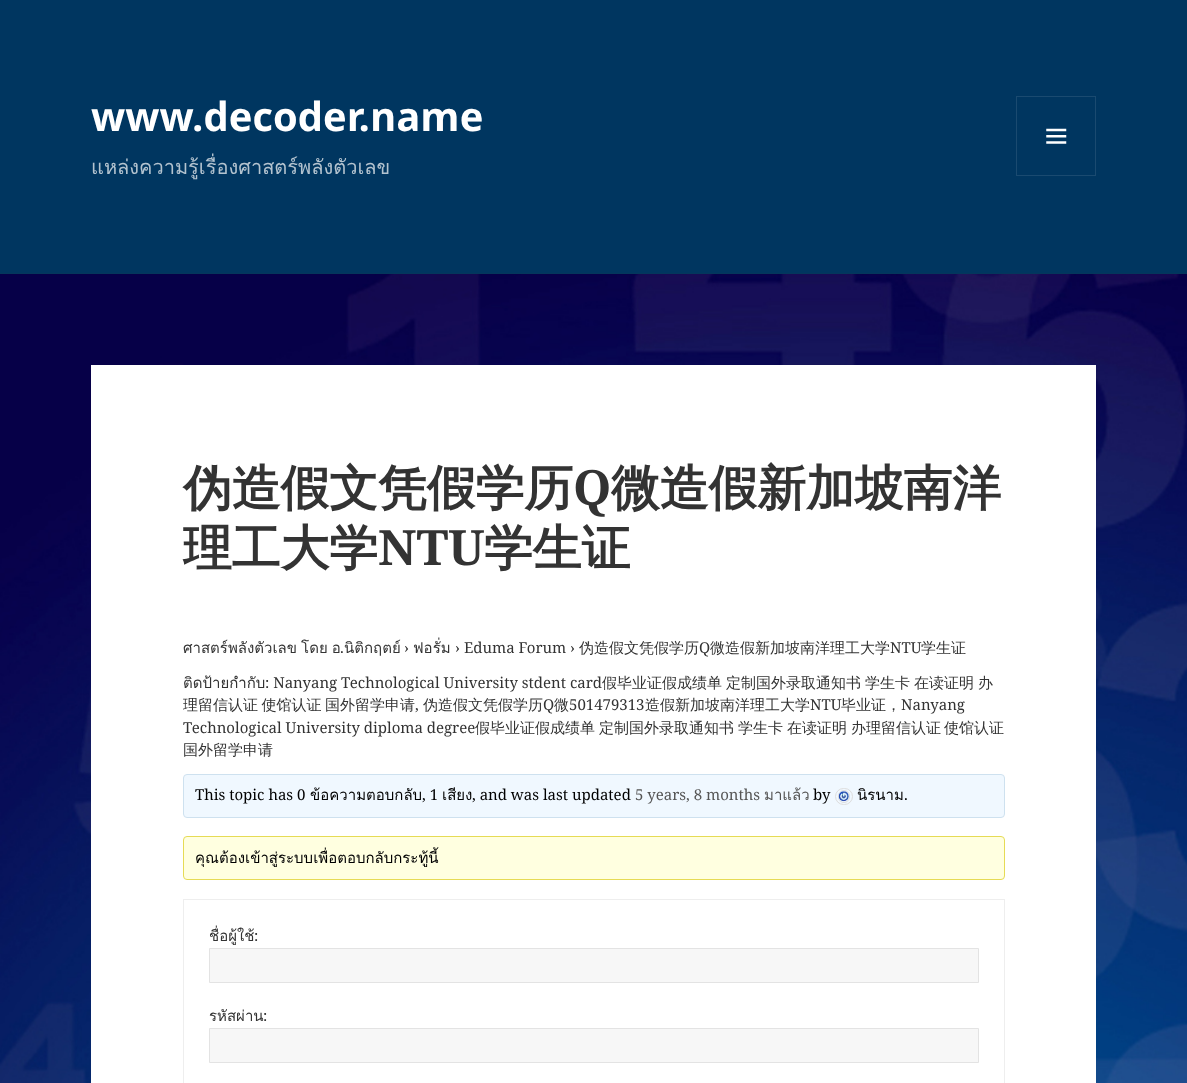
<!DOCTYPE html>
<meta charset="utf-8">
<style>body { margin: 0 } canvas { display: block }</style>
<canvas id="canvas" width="1187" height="1083"></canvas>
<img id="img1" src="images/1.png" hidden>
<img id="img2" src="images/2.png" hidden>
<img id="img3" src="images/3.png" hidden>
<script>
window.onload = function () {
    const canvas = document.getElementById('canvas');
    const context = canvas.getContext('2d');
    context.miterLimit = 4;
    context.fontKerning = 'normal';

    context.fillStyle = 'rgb(255, 255, 255)';
    context.fillRect(0, 0, 1187, 1083);
    context.drawImage(document.getElementById('img1'), 0, 274, 1187, 809);
    context.fillStyle = 'rgb(0, 54, 96)';
    context.fillRect(0, 0, 1187, 273);
    context.fillStyle = 'rgb(5, 54, 91)';
    context.fillRect(0, 273, 1187, 1);
    context.strokeStyle = 'rgb(26, 74, 112)';
    context.strokeRect(1016.5, 96.5, 79, 79);
    context.drawImage(document.getElementById('img2'), 1046, 128, 21, 16);
    context.fillStyle = 'rgb(255, 255, 255)';
    context.fillRect(91, 365, 1005, 718);
    context.fillStyle = 'rgb(240, 248, 255)';
    context.beginPath();
    context.roundRect(183.5, 774.5, 821, 43, 3.5);
    context.fill();
    context.strokeStyle = 'rgb(206, 225, 239)';
    context.stroke();
    context.beginPath();
    context.roundRect(835.5, 788.5, 17, 16, 8);
    context.strokeStyle = 'rgb(221, 221, 221)';
    context.stroke();
    context.beginPath();
    context.roundRect(838.5, 790.5, 11, 12, 5.5);
    context.stroke();
    context.drawImage(document.getElementById('img3'), 838, 791, 11, 11);
    context.fillStyle = 'rgb(255, 255, 224)';
    context.beginPath();
    context.roundRect(183.5, 836.5, 821, 43, 3.5);
    context.fill();
    context.strokeStyle = 'rgb(230, 219, 85)';
    context.stroke();
    context.strokeStyle = 'rgb(238, 238, 238)';
    context.strokeRect(183.5, 899.5, 821, 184);
    context.fillStyle = 'rgb(247, 247, 247)';
    context.beginPath();
    context.rect(209.5, 948.5, 769, 34);
    context.fill();
    context.strokeStyle = 'rgb(227, 227, 227)';
    context.stroke();
    context.beginPath();
    context.rect(209.5, 1028.5, 769, 34);
    context.fill();
    context.stroke();
    context.font = 'bold 40px Noto Sans';
    context.fillStyle = 'rgb(255, 255, 255)';
    context.fillText('www.decoder.name', 91, 131);
    context.font = '20px Loma';
    context.fillStyle = 'rgb(179, 195, 207)';
    context.fillText('แหล่งความรู้เรื่องศาสตร์พลังตัวเลข', 91, 174);
    context.font = 'bold 48.75px WenQuanYi Zen Hei';
    context.fillStyle = 'rgb(51, 51, 51)';
    context.fillText('伪造假文凭假学历', 183, 505);
    context.font = 'bold 48.75px Noto Serif';
    context.fillText('Q', 573, 505);
    context.font = 'bold 48.75px WenQuanYi Zen Hei';
    context.fillText('微造假新加坡南洋', 611, 505);
    context.fillText('理工大学', 183, 565);
    context.font = 'bold 48.75px Noto Serif';
    context.fillText('NTU', 378, 565);
    context.font = 'bold 48.75px WenQuanYi Zen Hei';
    context.fillText('学生证', 484, 565);
    context.wordSpacing = '-1px';
    context.font = '15px Loma';
    context.fillText('ศาสตร์พลังตัวเลข โดย อ', 183, 653);
    context.wordSpacing = '0px';
    context.font = '15px Noto Serif';
    context.fillText('›', 404, 653);
    context.font = '15px Loma';
    context.fillText('ฟอรั่ม', 413, 653);
    context.font = '15px Noto Serif';
    context.fillText('› Eduma Forum ›', 455, 653);
    context.font = '500 15px WenQuanYi Zen Hei';
    context.fillText('伪造假文凭假学历', 579, 653);
    context.font = '15px Noto Serif';
    context.fillText('Q', 699, 653);
    context.font = '500 15px WenQuanYi Zen Hei';
    context.fillText('微造假新加坡南洋理工大学', 710, 653);
    context.font = '15px Noto Serif';
    context.fillText('NTU', 890, 653);
    context.font = '500 15px WenQuanYi Zen Hei';
    context.fillText('学生证', 921, 653);
    context.font = '15px Noto Serif';
    context.fillText('.', 340, 653);
    context.font = '15px Loma';
    context.fillText('นิติกฤตย์', 344, 653);
    context.save();
    context.beginPath();
    context.rect(183, 636, 822, 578);
    context.clip();
    context.fillText('ติดป้ายกำกับ', 183, 688);
    context.restore();
    context.font = '15px Noto Serif';
    context.fillText(': Nanyang Technological University stdent card', 265, 688);
    context.font = '500 15px WenQuanYi Zen Hei';
    context.fillText('假毕业证假成绩单', 602, 688);
    context.fillText('定制国外录取通知书', 726, 688);
    context.fillText('学生卡', 865, 688);
    context.fillText('在读证明', 914, 688);
    context.fillText('办', 978, 688);
    context.save();
    context.beginPath();
    context.rect(183, 636, 822, 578);
    context.clip();
    context.wordSpacing = '-1px';
    context.fillText('理留信认证 使馆认证 国外留学申请', 183, 710);
    context.restore();
    context.font = '15px Noto Serif';
    context.fillText(',', 415, 710);
    context.font = '500 15px WenQuanYi Zen Hei';
    context.fillText('伪造假文凭假学历', 423, 710);
    context.font = '15px Noto Serif';
    context.fillText('Q', 543, 710);
    context.font = '500 15px WenQuanYi Zen Hei';
    context.fillText('微', 554, 710);
    context.font = '15px Noto Serif';
    context.fillText('501479313', 569, 710);
    context.font = '500 15px WenQuanYi Zen Hei';
    context.fillText('造假新加坡南洋理工大学', 645, 710);
    context.font = '15px Noto Serif';
    context.fillText('NTU', 810, 710);
    context.font = '500 15px WenQuanYi Zen Hei';
    context.fillText('毕业证，', 841, 710);
    context.font = '15px Noto Serif';
    context.fillText('Nanyang', 901, 710);
    context.fillText('Technological University diploma degree', 183, 733);
    context.font = '500 15px WenQuanYi Zen Hei';
    context.fillText('假毕业证假成绩单', 475, 733);
    context.fillText('定制国外录取通知书', 599, 733);
    context.fillText('学生卡', 738, 733);
    context.fillText('在读证明', 787, 733);
    context.fillText('办理留信认证', 851, 733);
    context.fillText('使馆认证', 944, 733);
    context.fillText('国外留学申请', 183, 755);
    context.font = '15px Noto Serif';
    context.fillStyle = 'rgb(0, 0, 0)';
    context.fillText('This topic has 0', 195, 800);
    context.font = '15px Loma';
    context.fillText('ข้อความตอบกลับ', 310, 800);
    context.font = '15px Noto Serif';
    context.fillText(', 1', 422, 800);
    context.font = '15px Loma';
    context.fillText('เสียง', 442, 800);
    context.font = '15px Noto Serif';
    context.fillText(', and was last updated', 472, 800);
    context.fillStyle = 'rgb(85, 85, 85)';
    context.fillText('5 years, 8 months', 635, 800);
    context.font = '15px Loma';
    context.fillText('มาแล้ว', 764, 800);
    context.font = '15px Noto Serif';
    context.fillStyle = 'rgb(0, 0, 0)';
    context.fillText('by', 813, 800);
    context.font = '15px Loma';
    context.fillText('นิรนาม', 857, 800);
    context.font = '15px Noto Serif';
    context.fillText('.', 904, 800);
    context.font = '15px Loma';
    context.fillText('คุณต้องเข้าสู่ระบบเพื่อตอบกลับกระทู้นี้', 195, 863);
    context.fillStyle = 'rgb(51, 51, 51)';
    context.fillText('ชื่อผู้ใช้', 209, 941);
    context.font = '15px Noto Serif';
    context.fillText(':', 254, 941);
    context.font = '15px Loma';
    context.fillText('รหัสผ่าน', 209, 1021);
    context.font = '15px Noto Serif';
    context.fillText(':', 263, 1021);
};
</script>
